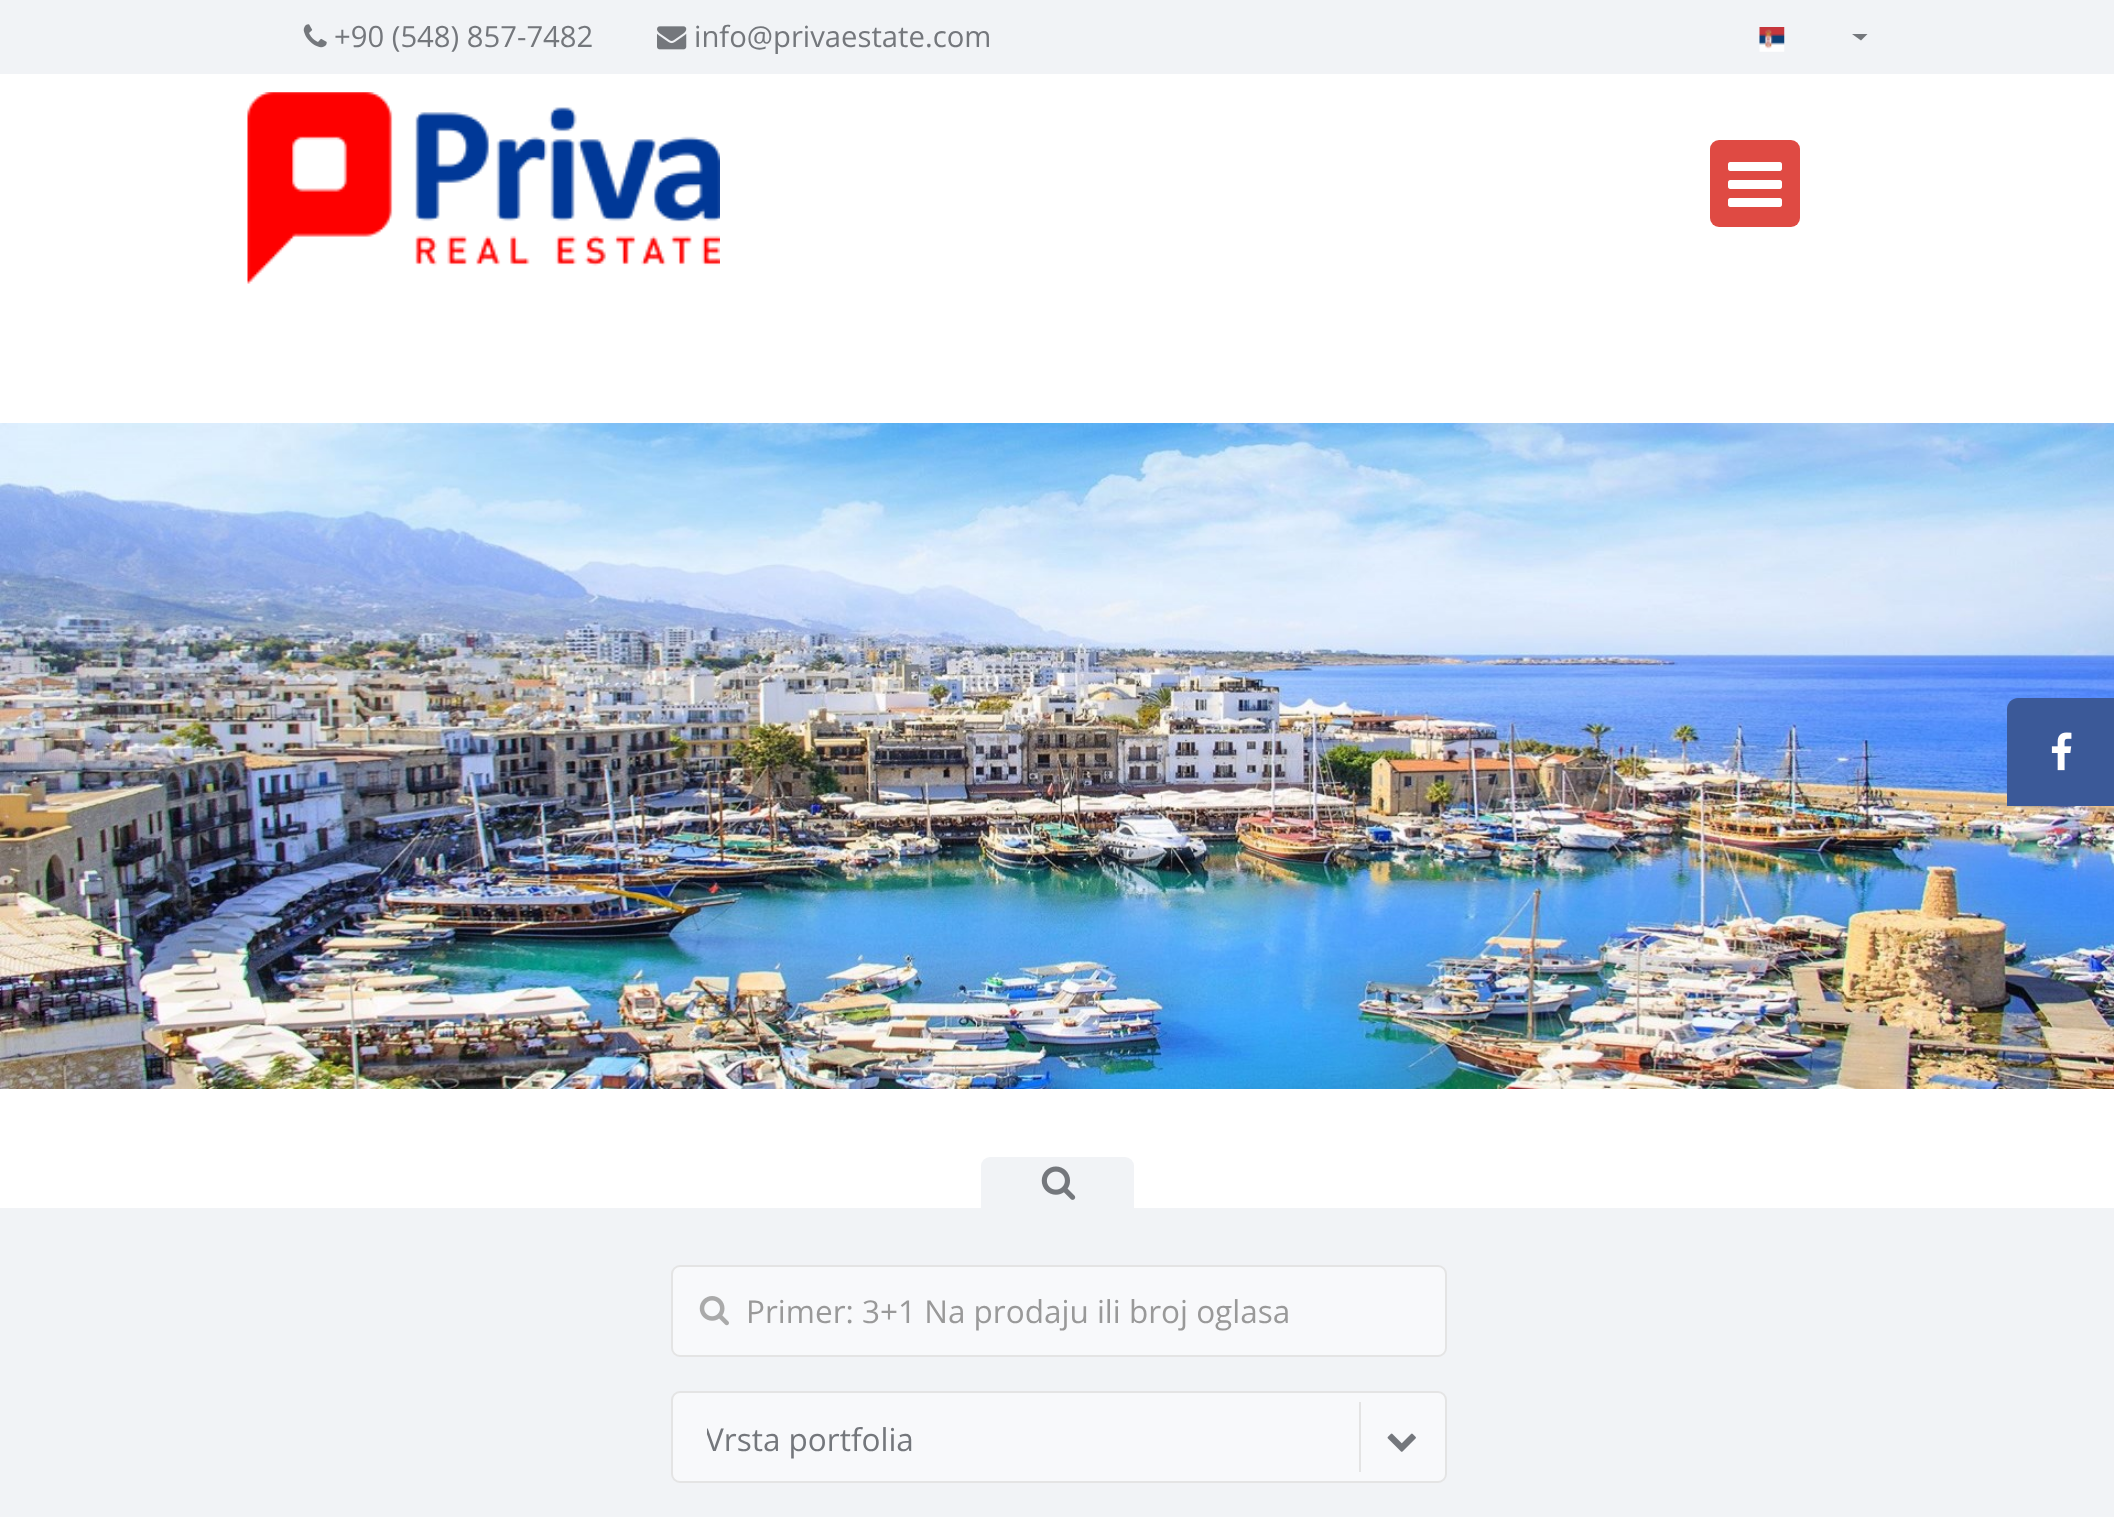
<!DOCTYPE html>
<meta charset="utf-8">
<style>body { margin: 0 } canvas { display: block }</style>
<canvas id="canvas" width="2114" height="1517"></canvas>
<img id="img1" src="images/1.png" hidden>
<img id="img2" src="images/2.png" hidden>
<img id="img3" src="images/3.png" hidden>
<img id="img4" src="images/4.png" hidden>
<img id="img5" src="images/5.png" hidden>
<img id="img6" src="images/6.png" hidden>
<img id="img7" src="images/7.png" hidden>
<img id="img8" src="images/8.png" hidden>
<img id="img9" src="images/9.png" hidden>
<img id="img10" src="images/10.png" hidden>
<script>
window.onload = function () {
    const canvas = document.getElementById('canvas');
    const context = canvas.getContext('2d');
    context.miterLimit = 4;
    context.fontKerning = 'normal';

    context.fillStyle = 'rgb(255, 255, 255)';
    context.fillRect(0, 0, 2114, 1517);
    context.fillStyle = 'rgb(241, 243, 246)';
    context.fillRect(0, 0, 2114, 74);
    context.drawImage(document.getElementById('img1'), 303, 24, 24, 24);
    context.drawImage(document.getElementById('img2'), 657, 26, 30, 24);
    context.drawImage(document.getElementById('img3'), 1759, 27, 26, 25);
    context.fillStyle = 'rgb(116, 119, 124)';
    context.beginPath();
    context.moveTo(1852, 34);
    context.lineTo(1867.5, 34);
    context.lineTo(1861, 40.5);
    context.closePath();
    context.fill();
    context.drawImage(document.getElementById('img4'), 247, 92, 473, 192);
    context.fillStyle = 'rgb(223, 74, 67)';
    context.beginPath();
    context.roundRect(1710, 140, 90, 87, 9);
    context.fill();
    context.drawImage(document.getElementById('img5'), 1728, 162, 54, 45);
    context.drawImage(document.getElementById('img6'), 0, 423, 2114, 666);
    context.fillStyle = 'rgb(59, 89, 152)';
    context.beginPath();
    context.moveTo(2018, 698);
    context.lineTo(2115, 698);
    context.lineTo(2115, 806);
    context.lineTo(2007, 806);
    context.lineTo(2007, 709);
    context.bezierCurveTo(2007, 703, 2012, 698, 2018, 698);
    context.closePath();
    context.fill();
    context.drawImage(document.getElementById('img7'), 2051, 732, 21, 39);
    context.fillStyle = 'rgb(241, 243, 246)';
    context.fillRect(0, 1208, 2114, 309);
    context.beginPath();
    context.roundRect(981, 1157, 153, 54, [9, 9, 0, 0]);
    context.fill();
    context.drawImage(document.getElementById('img8'), 1041, 1166, 35, 34);
    context.fillStyle = 'rgb(248, 249, 251)';
    context.beginPath();
    context.roundRect(672, 1266, 774, 90, 8);
    context.fill();
    context.strokeStyle = 'rgb(228, 228, 228)';
    context.lineWidth = 2;
    context.stroke();
    context.drawImage(document.getElementById('img9'), 699, 1296, 30, 30);
    context.beginPath();
    context.roundRect(672, 1392, 774, 90, 8);
    context.fill();
    context.stroke();
    context.fillStyle = 'rgb(228, 228, 228)';
    context.fillRect(1359, 1402, 2, 70);
    context.drawImage(document.getElementById('img10'), 1387, 1433, 29, 19);
    context.font = '29.25px Open Sans';
    context.fillStyle = 'rgb(116, 119, 124)';
    context.fillText('+90 (548) 857-7482', 334, 47);
    context.fillText('info@privaestate.com', 694, 47);
    context.font = '31.5px Open Sans';
    context.fillStyle = 'rgb(153, 153, 153)';
    context.fillText('Primer: 3+1 Na prodaju ili broj oglasa', 746, 1323);
    context.save();
    context.beginPath();
    context.rect(707, 1393, 648, 92);
    context.clip();
    context.fillStyle = 'rgb(116, 119, 124)';
    context.fillText('Vrsta portfolia', 705, 1451);
    context.restore();
};
</script>
